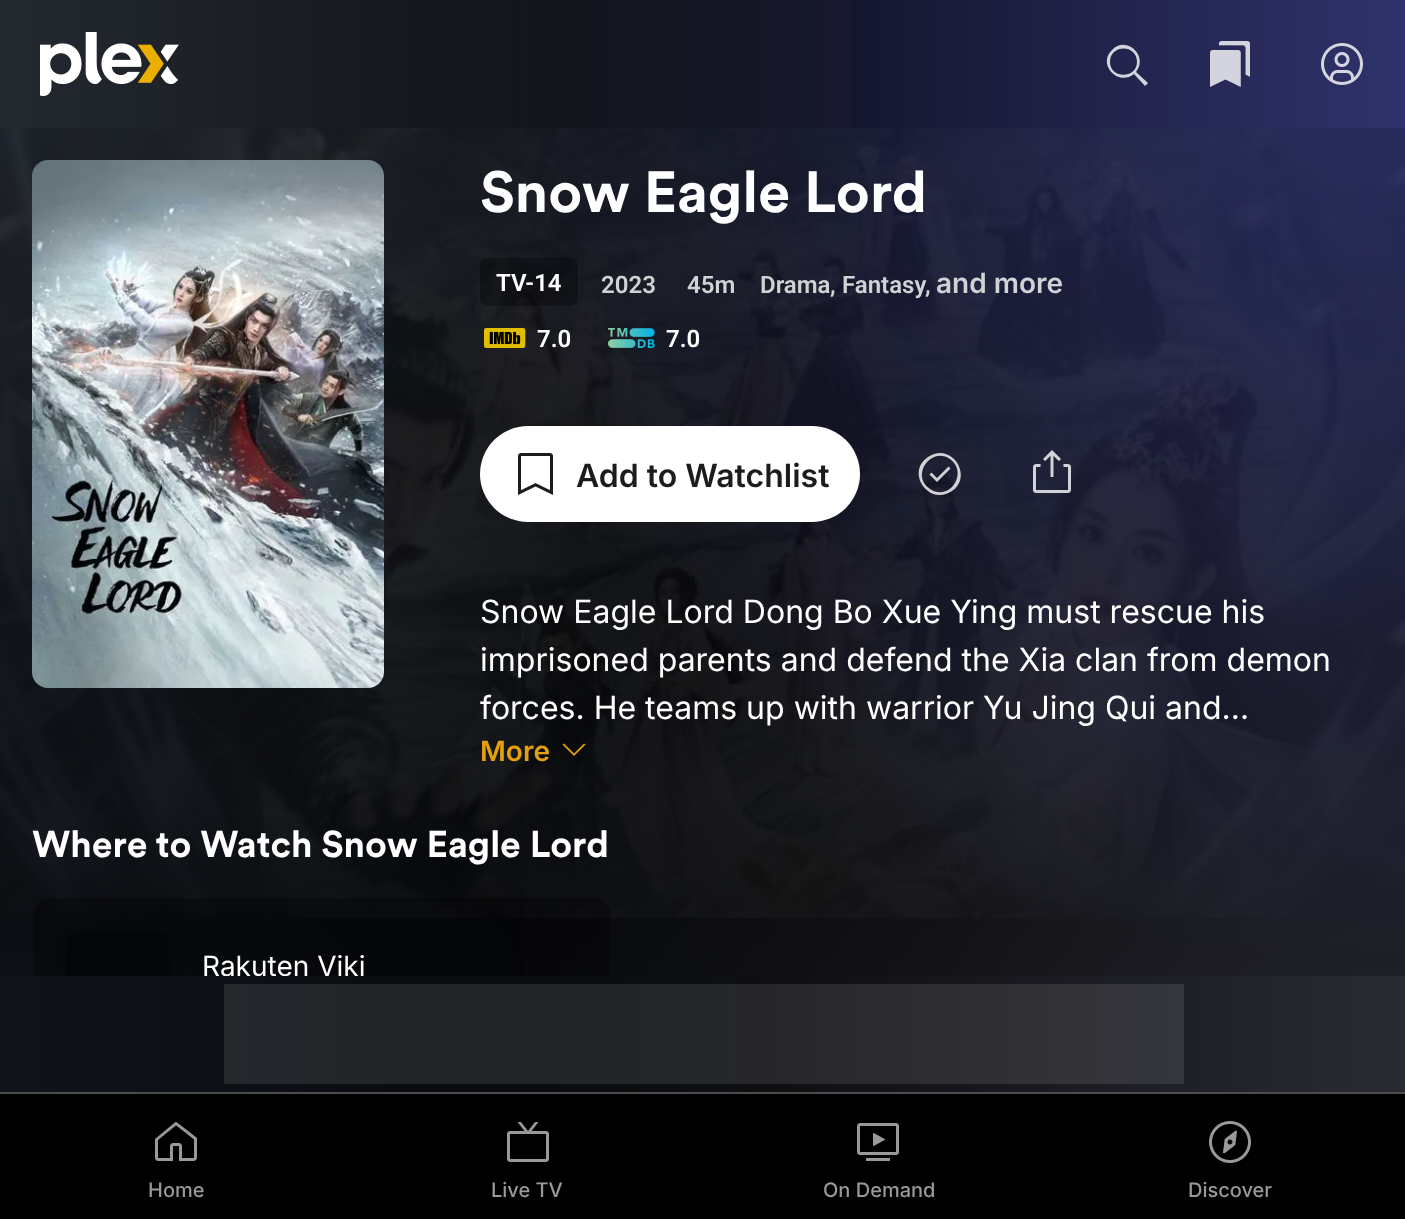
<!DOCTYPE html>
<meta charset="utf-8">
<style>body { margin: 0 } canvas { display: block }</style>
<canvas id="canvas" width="1405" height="1219"></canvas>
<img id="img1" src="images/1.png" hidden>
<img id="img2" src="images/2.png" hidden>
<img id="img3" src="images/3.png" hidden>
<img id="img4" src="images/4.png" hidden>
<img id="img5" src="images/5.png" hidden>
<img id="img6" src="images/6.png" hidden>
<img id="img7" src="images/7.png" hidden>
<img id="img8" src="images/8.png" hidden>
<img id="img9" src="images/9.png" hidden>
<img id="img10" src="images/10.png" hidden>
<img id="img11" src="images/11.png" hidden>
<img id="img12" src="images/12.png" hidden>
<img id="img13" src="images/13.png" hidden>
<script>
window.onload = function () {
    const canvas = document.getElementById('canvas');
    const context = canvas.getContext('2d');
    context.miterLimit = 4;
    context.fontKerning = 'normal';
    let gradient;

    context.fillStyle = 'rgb(255, 255, 255)';
    context.fillRect(0, 0, 1405, 1219);
    gradient = context.createLinearGradient(0, 64, 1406, 64);
    gradient.addColorStop(0.3, 'rgb(0, 0, 0)');
    gradient.addColorStop(1, 'rgb(47, 51, 108)');
    context.fillStyle = gradient;
    context.fillRect(6, 0, 1399, 128);
    gradient = context.createLinearGradient(0, 64, 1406, 64);
    gradient.addColorStop(0, 'rgb(36, 41, 49)');
    gradient.addColorStop(0.7, 'rgba(36, 41, 49, 0)');
    context.fillStyle = gradient;
    context.fillRect(0, 0, 852, 128);
    context.drawImage(document.getElementById('img1'), 40, 32, 139, 64);
    context.fillStyle = 'rgba(255, 255, 255, 0.8)';
    context.beginPath();
    context.moveTo(1148, 83);
    context.lineTo(1136, 72);
    context.bezierCurveTo(1149, 56, 1126, 35, 1112, 50);
    context.bezierCurveTo(1097, 64, 1118, 87, 1134, 74);
    context.lineTo(1145, 86);
    context.closePath();
    context.moveTo(1110, 62);
    context.bezierCurveTo(1110, 44, 1137, 44, 1137, 62);
    context.bezierCurveTo(1137, 79, 1110, 79, 1110, 62);
    context.closePath();
    context.fill();
    context.drawImage(document.getElementById('img2'), 1210, 41, 40, 46);
    context.drawImage(document.getElementById('img3'), 1321, 43, 42, 42);
    gradient = context.createRadialGradient(0, 1220, 0, 0, 1220, 1406);
    gradient.addColorStop(0, 'rgb(16, 20, 26)');
    gradient.addColorStop(0.7, 'rgb(0, 0, 0)');
    context.fillStyle = gradient;
    context.fillRect(0, 128, 1405, 848);
    gradient = context.createRadialGradient(1406, 1220, 0, 1406, 1220, 1406);
    gradient.addColorStop(0, 'rgb(41, 42, 51)');
    gradient.addColorStop(0.7, 'rgba(41, 42, 51, 0)');
    context.fillStyle = gradient;
    context.fillRect(524, 287, 881, 689);
    gradient = context.createRadialGradient(1406, 0, 0, 1406, 0, 1406);
    gradient.addColorStop(0, 'rgb(47, 51, 108)');
    gradient.addColorStop(0.7, 'rgba(47, 51, 108, 0)');
    context.fillStyle = gradient;
    context.fillRect(457, 128, 948, 821);
    gradient = context.createRadialGradient(0, 0, 0, 0, 0, 1406);
    gradient.addColorStop(0, 'rgb(36, 41, 49)');
    gradient.addColorStop(0.7, 'rgba(36, 41, 49, 0)');
    context.fillStyle = gradient;
    context.fillRect(0, 128, 859, 783);
    context.drawImage(document.getElementById('img4'), 0, 128, 1405, 790);
    context.fillStyle = 'rgba(0, 0, 0, 0.3)';
    context.beginPath();
    context.roundRect(32, 160, 352, 528, 16);
    context.fill();
    context.drawImage(document.getElementById('img5'), 32, 160, 352, 528);
    context.beginPath();
    context.roundRect(480, 258, 98, 48, 8);
    context.fill();
    context.drawImage(document.getElementById('img6'), 484, 328, 42, 20);
    context.drawImage(document.getElementById('img7'), 608, 328, 47, 20);
    context.fillStyle = 'rgb(255, 255, 255)';
    context.beginPath();
    context.roundRect(480, 426, 380, 96, 48);
    context.fill();
    context.drawImage(document.getElementById('img8'), 518, 453, 35, 42);
    context.fillStyle = 'rgba(255, 255, 255, 0.8)';
    context.beginPath();
    context.moveTo(929.5, 474.5);
    context.lineTo(937, 482);
    context.lineTo(950.5, 468.5);
    context.lineTo(948.5, 466.5);
    context.lineTo(937, 478);
    context.lineTo(931.5, 472.5);
    context.closePath();
    context.fill();
    context.beginPath();
    context.moveTo(928, 457);
    context.bezierCurveTo(951, 441, 974, 476, 952, 491);
    context.bezierCurveTo(929, 507, 905, 472, 928, 457);
    context.closePath();
    context.moveTo(930, 489);
    context.bezierCurveTo(949, 502, 969, 473, 950, 459);
    context.bezierCurveTo(931, 446, 910, 476, 930, 489);
    context.closePath();
    context.fill('evenodd');
    context.drawImage(document.getElementById('img9'), 1033, 450, 38, 43);
    context.fillStyle = 'rgb(229, 160, 13)';
    context.beginPath();
    context.moveTo(574, 756);
    context.lineTo(562.5, 744.5);
    context.lineTo(564, 743.5);
    context.lineTo(574, 753.5);
    context.lineTo(584, 743.5);
    context.lineTo(585.5, 744.5);
    context.closePath();
    context.fill();
    context.fillStyle = 'rgba(0, 0, 0, 0.3)';
    context.beginPath();
    context.roundRect(34, 898, 576, 168, 16);
    context.fill();
    context.save();
    context.beginPath();
    context.moveTo(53, 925);
    context.lineTo(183, 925);
    context.lineTo(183, 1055);
    context.lineTo(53, 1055);
    context.closePath();
    context.moveTo(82, 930);
    context.lineTo(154, 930);
    context.bezierCurveTo(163, 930, 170, 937, 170, 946);
    context.lineTo(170, 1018);
    context.bezierCurveTo(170, 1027, 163, 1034, 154, 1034);
    context.lineTo(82, 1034);
    context.bezierCurveTo(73, 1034, 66, 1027, 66, 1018);
    context.lineTo(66, 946);
    context.bezierCurveTo(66, 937, 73, 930, 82, 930);
    context.closePath();
    context.clip('evenodd');
    context.fillStyle = 'rgba(0, 0, 0, 0.2)';
    context.filter = 'blur(4px)';
    context.beginPath();
    context.roundRect(66, 938, 104, 104, 16);
    context.fill();
    context.filter = 'none';
    context.restore();
    context.beginPath();
    context.roundRect(66, 930, 104, 104, 16);
    context.fill();
    context.fillStyle = 'rgb(0, 0, 0)';
    context.fillRect(0, 1094, 1405, 125);
    context.fillStyle = 'rgb(77, 77, 77)';
    context.fillRect(0, 1092, 1405, 2);
    context.drawImage(document.getElementById('img10'), 155, 1122, 42, 39);
    context.drawImage(document.getElementById('img11'), 507, 1122, 42, 40);
    context.drawImage(document.getElementById('img12'), 857, 1123, 42, 38);
    context.drawImage(document.getElementById('img13'), 1209, 1121, 42, 42);
    context.font = 'bold 57.5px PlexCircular';
    context.fillStyle = 'rgb(255, 255, 255)';
    context.fillText('Snow Eagle Lord', 480, 212);
    context.font = '600 24px Roboto';
    context.fillText('TV-14', 496, 291);
    context.fillStyle = 'rgb(209, 210, 212)';
    context.fillText('2023', 601, 293);
    context.fillText('45m', 687, 293);
    context.fillText('Drama', 760, 293);
    context.fillText(',', 830, 293);
    context.fillText('Fantasy', 842, 293);
    context.font = '600 28px Inter';
    context.fillText('and more', 936, 293);
    context.font = '600 24px Roboto';
    context.fillText(',', 925, 293);
    context.fillStyle = 'rgb(255, 255, 255)';
    context.fillText('7.0', 537, 347);
    context.fillText('7.0', 666, 347);
    context.font = '600 32px Inter';
    context.fillStyle = 'rgb(28, 28, 28)';
    context.fillText('Add to Watchlist', 576, 487);
    context.font = '32px Inter';
    context.fillStyle = 'rgb(255, 255, 255)';
    context.fillText('Snow Eagle Lord Dong Bo Xue Ying must rescue his', 480, 623);
    context.fillText('imprisoned parents and defend the Xia clan from demon', 480, 671);
    context.save();
    context.beginPath();
    context.rect(480, 586, 894, 144);
    context.clip();
    context.fillText('forces. He teams up with warrior Yu Jing Qui and…', 480, 719);
    context.restore();
    context.font = '600 28px Inter';
    context.fillStyle = 'rgb(229, 160, 13)';
    context.fillText('More', 480, 761);
    context.font = 'bold 37px PlexCircular';
    context.fillStyle = 'rgb(255, 255, 255)';
    context.fillText('Where to Watch Snow Eagle Lord', 32, 857);
    context.font = '28px Inter';
    context.fillText('Rakuten Viki', 202, 976);
    gradient = context.createLinearGradient(0, 1034, 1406, 1034);
    gradient.addColorStop(0.3, 'rgb(0, 0, 0)');
    gradient.addColorStop(1, 'rgb(41, 42, 51)');
    context.fillStyle = gradient;
    context.fillRect(6, 976, 1399, 116);
    gradient = context.createLinearGradient(0, 1034, 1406, 1034);
    gradient.addColorStop(0, 'rgb(16, 20, 26)');
    gradient.addColorStop(0.7, 'rgba(16, 20, 26, 0)');
    context.fillStyle = gradient;
    context.fillRect(0, 976, 738, 116);
    context.fillStyle = 'rgba(255, 255, 255, 0.1)';
    context.fillRect(224, 984, 960, 100);
    context.font = '500 20px Inter';
    context.fillStyle = 'rgb(153, 153, 153)';
    context.fillText('Home', 148, 1197);
    context.fillText('Live TV', 491, 1197);
    context.fillText('On Demand', 823, 1197);
    context.fillText('Discover', 1188, 1197);
};
</script>
